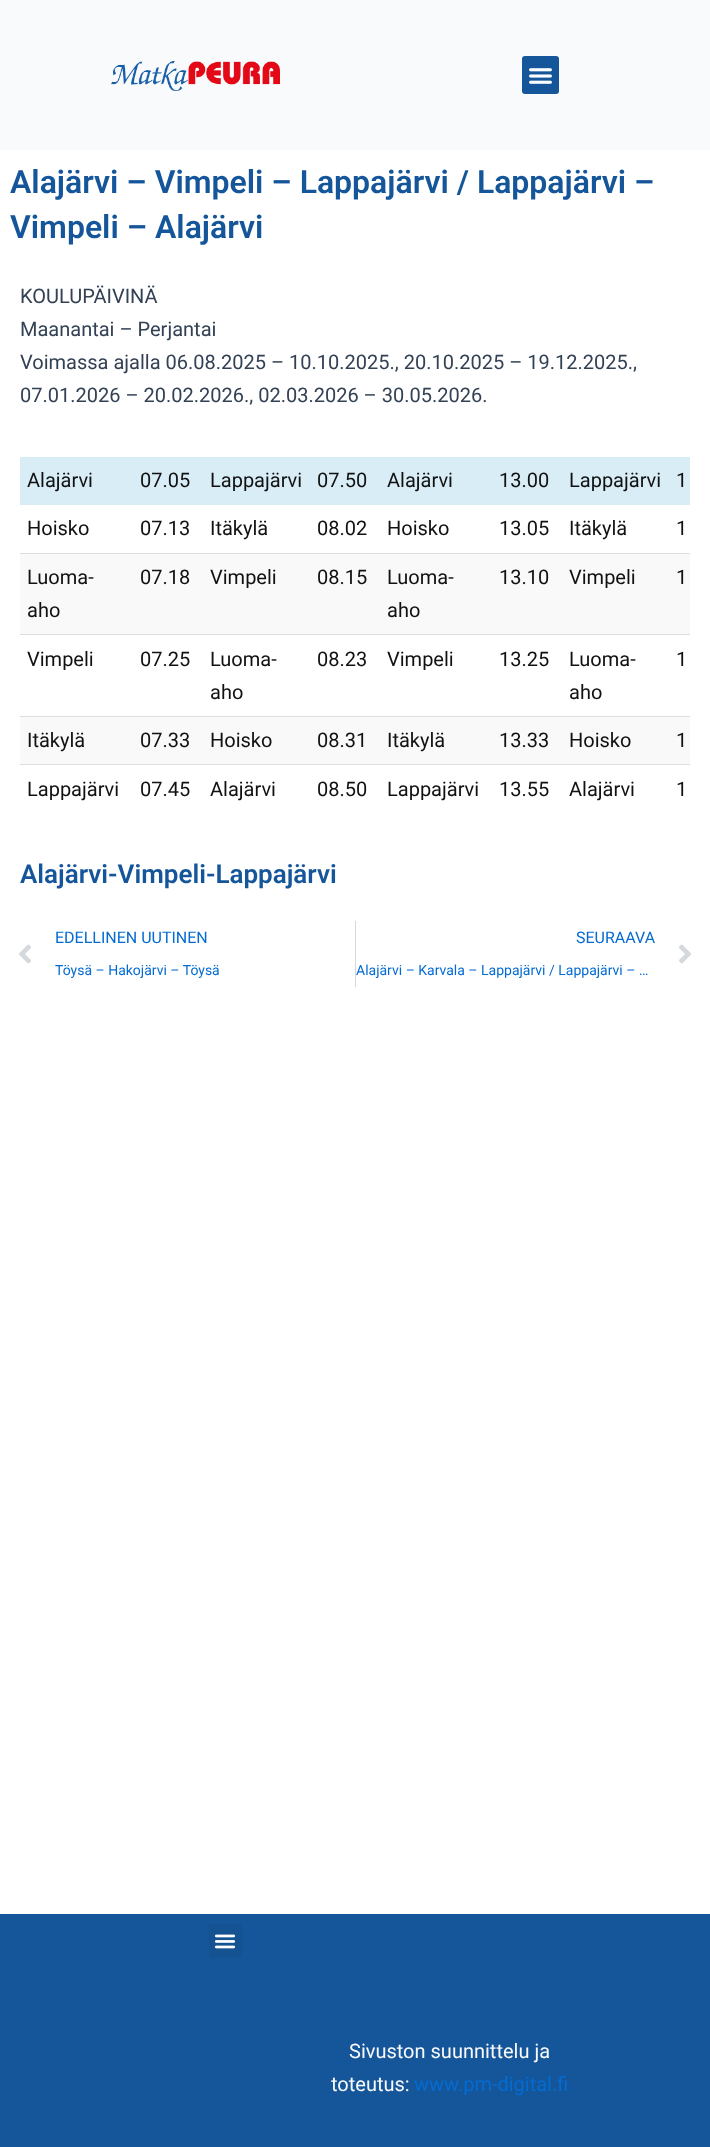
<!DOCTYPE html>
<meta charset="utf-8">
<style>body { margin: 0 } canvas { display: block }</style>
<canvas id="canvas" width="710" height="2147"></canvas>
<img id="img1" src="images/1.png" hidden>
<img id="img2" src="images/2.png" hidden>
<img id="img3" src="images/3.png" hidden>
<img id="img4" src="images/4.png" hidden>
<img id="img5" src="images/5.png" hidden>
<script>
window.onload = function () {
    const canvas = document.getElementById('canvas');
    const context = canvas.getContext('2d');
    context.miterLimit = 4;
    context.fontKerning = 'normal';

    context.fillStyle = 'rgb(255, 255, 255)';
    context.fillRect(0, 0, 710, 2147);
    context.fillStyle = 'rgb(249, 250, 251)';
    context.fillRect(0, 0, 710, 150);
    context.drawImage(document.getElementById('img1'), 111, 61, 169, 30);
    context.fillStyle = 'rgb(21, 86, 154)';
    context.beginPath();
    context.roundRect(522, 56, 37, 38, 3);
    context.fill();
    context.drawImage(document.getElementById('img2'), 529, 68, 23, 16);
    context.fillStyle = 'rgb(217, 237, 247)';
    context.fillRect(20, 457, 670, 47);
    context.fillRect(20, 504, 670, 1);
    context.fillStyle = 'rgb(249, 249, 249)';
    context.fillRect(20, 554, 670, 80);
    context.fillStyle = 'rgb(221, 221, 221)';
    context.fillRect(20, 553, 670, 1);
    context.fillRect(20, 634, 670, 1);
    context.fillStyle = 'rgb(249, 249, 249)';
    context.fillRect(20, 717, 670, 47);
    context.fillStyle = 'rgb(221, 221, 221)';
    context.fillRect(20, 716, 670, 1);
    context.fillRect(20, 764, 670, 1);
    context.drawImage(document.getElementById('img3'), 19, 944, 12, 20);
    context.fillStyle = 'rgb(213, 216, 220)';
    context.fillRect(355, 921, 1, 66);
    context.drawImage(document.getElementById('img4'), 679, 944, 12, 20);
    context.fillStyle = 'rgb(21, 86, 154)';
    context.fillRect(0, 1914, 710, 233);
    context.fillStyle = 'rgb(20, 82, 146)';
    context.beginPath();
    context.roundRect(209, 1924, 33, 33, 3);
    context.fill();
    context.drawImage(document.getElementById('img5'), 214, 1934, 22, 15);
    context.font = '600 32px Roboto';
    context.fillStyle = 'rgb(21, 86, 154)';
    context.fillText('Alajärvi – Vimpeli – Lappajärvi / Lappajärvi –', 10, 193);
    context.fillText('Vimpeli – Alajärvi', 10, 238);
    context.font = '20px Roboto';
    context.fillStyle = 'rgb(51, 65, 85)';
    context.fillText('KOULUPÄIVINÄ', 20, 303);
    context.fillText('Maanantai – Perjantai', 20, 336);
    context.fillText('Voimassa ajalla 06.08.2025 – 10.10.2025., 20.10.2025 – 19.12.2025.,', 20, 369);
    context.fillText('07.01.2026 – 20.02.2026., 02.03.2026 – 30.05.2026.', 20, 402);
    context.fillStyle = 'rgb(17, 17, 17)';
    context.fillText('Alajärvi', 27, 487);
    context.fillText('07.05', 140, 487);
    context.fillText('Lappajärvi', 210, 487);
    context.fillText('07.50', 317, 487);
    context.fillText('Alajärvi', 387, 487);
    context.fillText('13.00', 499, 487);
    context.fillText('Lappajärvi', 569, 487);
    context.fillText('1', 676, 487);
    context.fillText('Hoisko', 27, 535);
    context.fillText('07.13', 140, 535);
    context.fillText('Itäkylä', 210, 535);
    context.fillText('08.02', 317, 535);
    context.fillText('Hoisko', 387, 535);
    context.fillText('13.05', 499, 535);
    context.fillText('Itäkylä', 569, 535);
    context.fillText('1', 676, 535);
    context.fillText('Luoma-', 27, 584);
    context.fillText('aho', 27, 617);
    context.fillText('07.18', 140, 584);
    context.fillText('Vimpeli', 210, 584);
    context.fillText('08.15', 317, 584);
    context.fillText('Luoma-', 387, 584);
    context.fillText('aho', 387, 617);
    context.fillText('13.10', 499, 584);
    context.fillText('Vimpeli', 569, 584);
    context.fillText('1', 676, 584);
    context.fillText('Vimpeli', 27, 666);
    context.fillText('07.25', 140, 666);
    context.fillText('Luoma-', 210, 666);
    context.fillText('aho', 210, 699);
    context.fillText('08.23', 317, 666);
    context.fillText('Vimpeli', 387, 666);
    context.fillText('13.25', 499, 666);
    context.fillText('Luoma-', 569, 666);
    context.fillText('aho', 569, 699);
    context.fillText('1', 676, 666);
    context.fillText('Itäkylä', 27, 747);
    context.fillText('07.33', 140, 747);
    context.fillText('Hoisko', 210, 747);
    context.fillText('08.31', 317, 747);
    context.fillText('Itäkylä', 387, 747);
    context.fillText('13.33', 499, 747);
    context.fillText('Hoisko', 569, 747);
    context.fillText('1', 676, 747);
    context.fillText('Lappajärvi', 27, 796);
    context.fillText('07.45', 140, 796);
    context.fillText('Alajärvi', 210, 796);
    context.fillText('08.50', 317, 796);
    context.fillText('Lappajärvi', 387, 796);
    context.fillText('13.55', 499, 796);
    context.fillText('Alajärvi', 569, 796);
    context.fillText('1', 676, 796);
    context.font = '600 26px Roboto';
    context.fillStyle = 'rgb(21, 86, 154)';
    context.fillText('Alajärvi-Vimpeli-Lappajärvi', 20, 883);
    context.font = '16px Roboto';
    context.fillStyle = 'rgb(4, 107, 210)';
    context.fillText('EDELLINEN UUTINEN', 55, 943);
    context.font = '14px Roboto';
    context.fillText('Töysä – Hakojärvi – Töysä', 55, 975);
    context.font = '16px Roboto';
    context.fillText('SEURAAVA', 576, 943);
    context.font = '14px Roboto';
    context.fillText('Alajärvi – Karvala – Lappajärvi / Lappajärvi – …', 356, 975);
    context.font = '20px Roboto';
    context.fillStyle = 'rgb(249, 250, 251)';
    context.fillText('Sivuston suunnittelu ja', 349, 2058);
    context.fillText('toteutus:', 331, 2091);
    context.fillStyle = 'rgb(4, 107, 210)';
    context.fillText('www.pm-digital.fi', 414, 2091);
};
</script>
